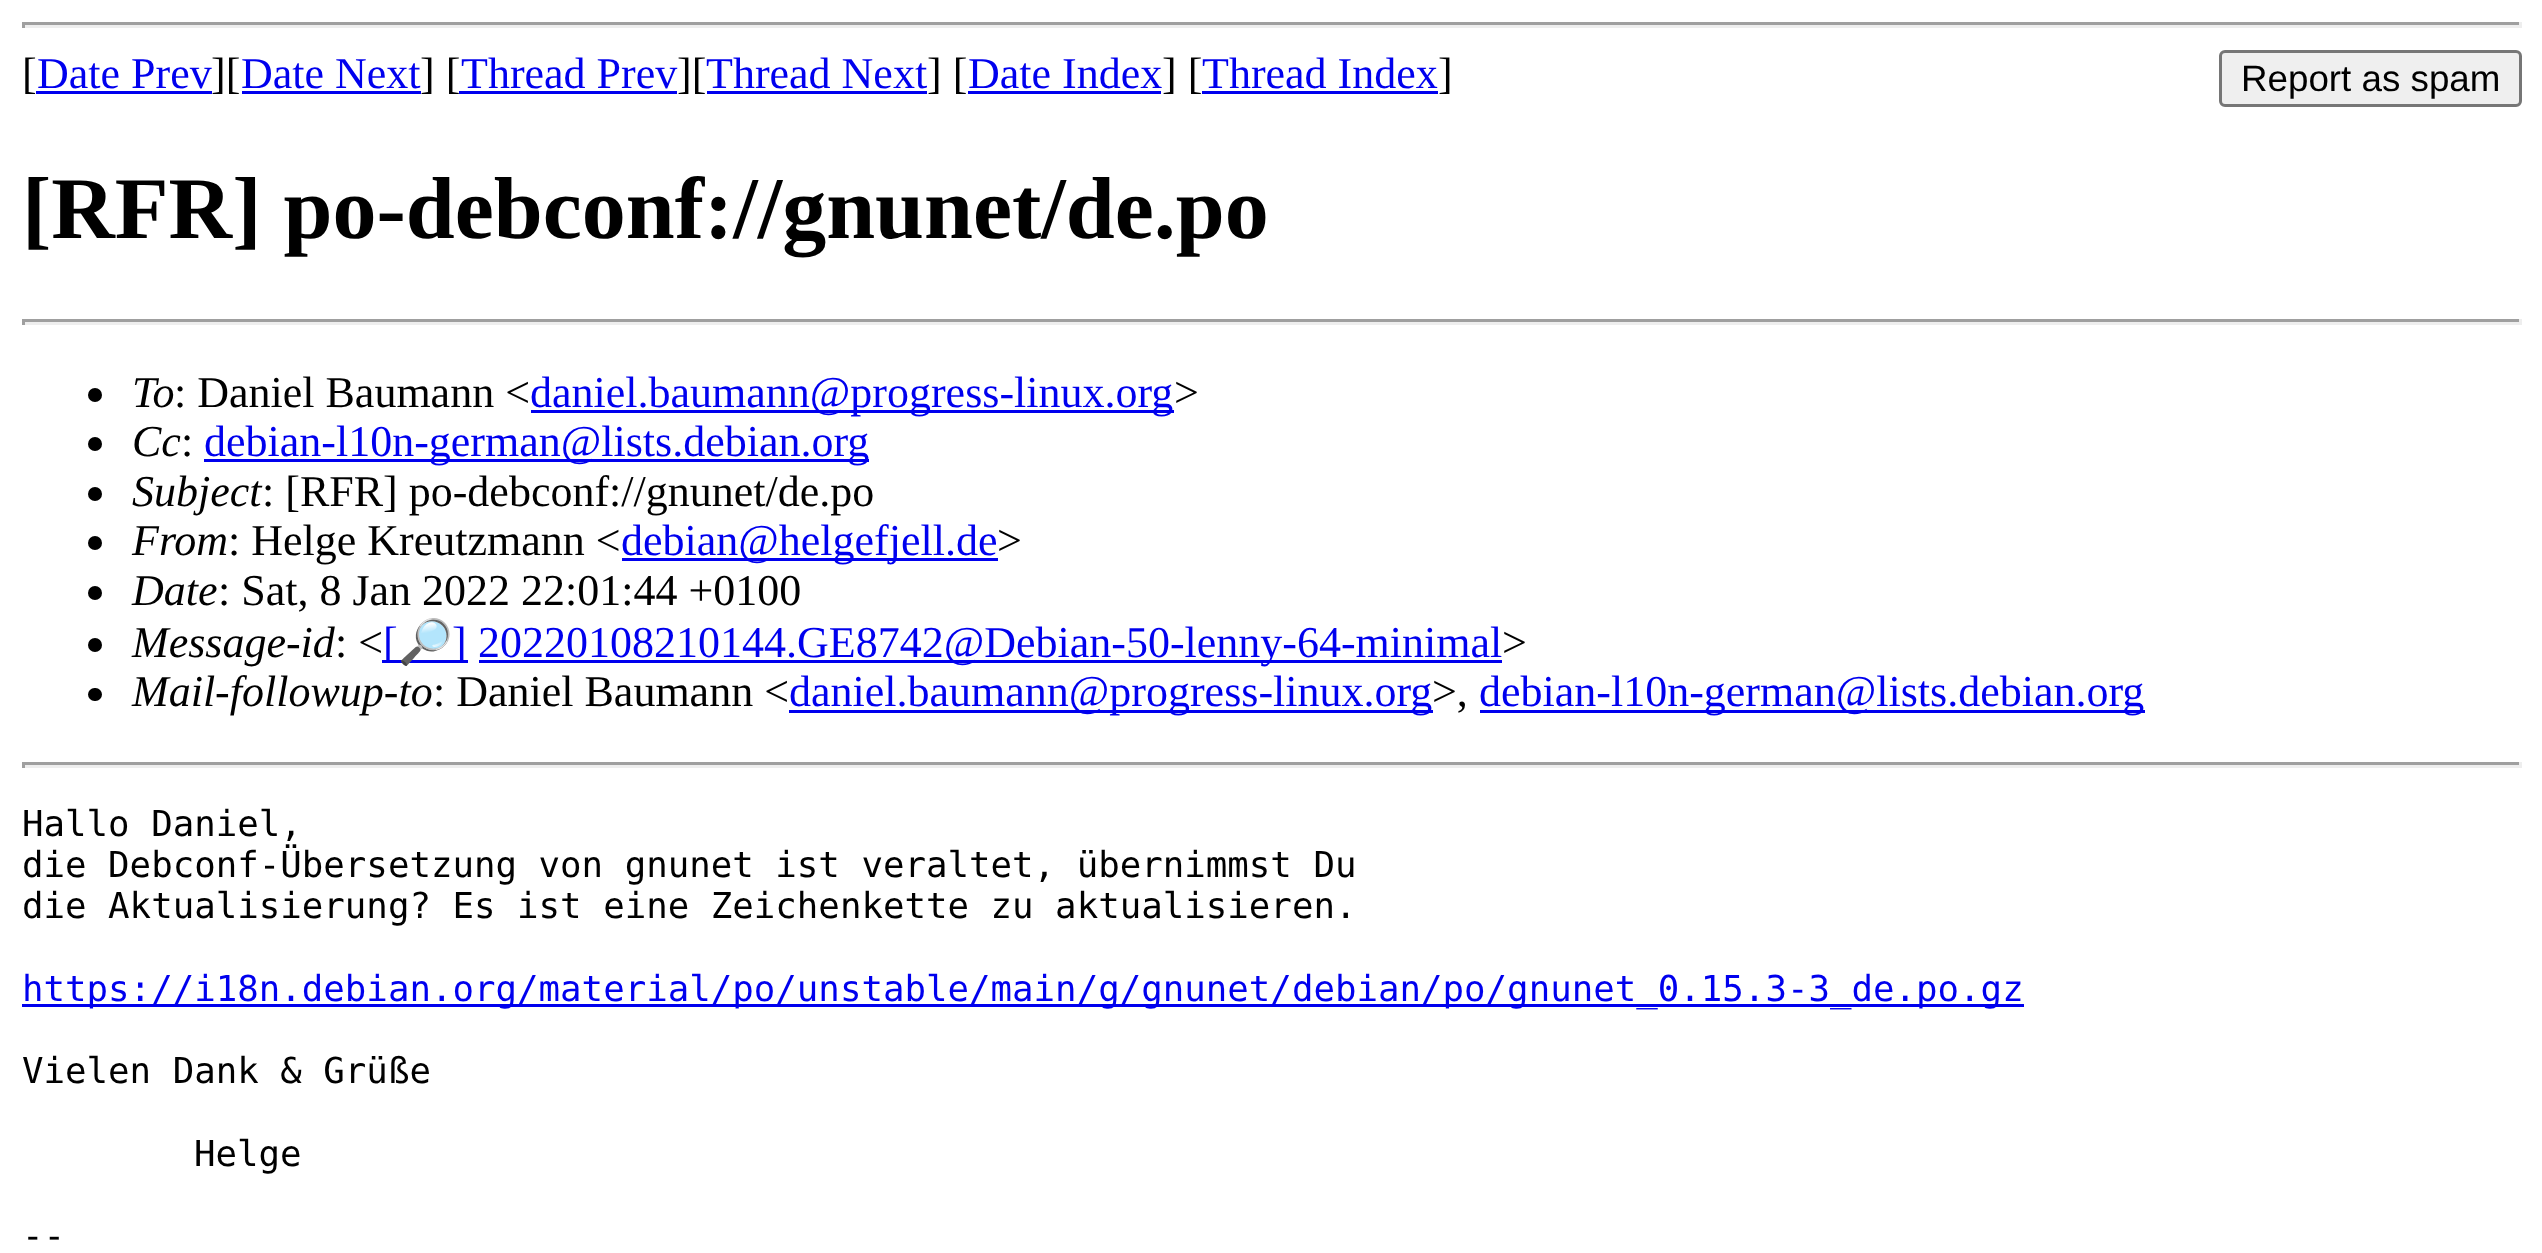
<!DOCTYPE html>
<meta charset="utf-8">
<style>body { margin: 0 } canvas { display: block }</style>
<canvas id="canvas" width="2542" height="1253"></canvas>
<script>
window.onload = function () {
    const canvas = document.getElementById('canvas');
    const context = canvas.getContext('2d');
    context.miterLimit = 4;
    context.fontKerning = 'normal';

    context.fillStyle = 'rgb(255, 255, 255)';
    context.fillRect(0, 0, 2542, 1253);
    context.fillStyle = 'rgb(159, 159, 159)';
    context.fillRect(22, 22, 2500, 3);
    context.fillStyle = 'rgb(238, 238, 238)';
    context.fillRect(2519, 22, 3, 6);
    context.fillRect(22, 25, 2500, 3);
    context.fillStyle = 'rgb(159, 159, 159)';
    context.fillRect(22, 22, 3, 6);
    context.fillStyle = 'rgb(0, 0, 238)';
    context.fillRect(36, 91, 176, 3);
    context.fillRect(242, 91, 179, 3);
    context.fillRect(459, 91, 218, 3);
    context.fillRect(707, 91, 220, 3);
    context.fillRect(968, 91, 193, 3);
    context.fillRect(1202, 91, 236, 3);
    context.fillStyle = 'rgb(239, 239, 239)';
    context.beginPath();
    context.roundRect(2220.5, 51.5, 300, 54, 4.5);
    context.fill();
    context.strokeStyle = 'rgb(118, 118, 118)';
    context.lineWidth = 3;
    context.stroke();
    context.fillStyle = 'rgb(159, 159, 159)';
    context.fillRect(22, 319, 2500, 3);
    context.fillStyle = 'rgb(238, 238, 238)';
    context.fillRect(2519, 319, 3, 6);
    context.fillRect(22, 322, 2500, 3);
    context.fillStyle = 'rgb(159, 159, 159)';
    context.fillRect(22, 319, 3, 6);
    context.fillStyle = 'rgb(0, 0, 0)';
    context.beginPath();
    context.arc(95, 395, 7, 0, 2 * Math.PI);
    context.fill();
    context.fillStyle = 'rgb(0, 0, 238)';
    context.fillRect(531, 410, 643, 3);
    context.fillStyle = 'rgb(0, 0, 0)';
    context.beginPath();
    context.arc(95, 444, 7, 0, 2 * Math.PI);
    context.fill();
    context.fillStyle = 'rgb(0, 0, 238)';
    context.fillRect(204, 459, 665, 3);
    context.fillStyle = 'rgb(0, 0, 0)';
    context.beginPath();
    context.arc(95, 494, 7, 0, 2 * Math.PI);
    context.fill();
    context.beginPath();
    context.arc(95, 543, 7, 0, 2 * Math.PI);
    context.fill();
    context.fillStyle = 'rgb(0, 0, 238)';
    context.fillRect(622, 558, 376, 3);
    context.fillStyle = 'rgb(0, 0, 0)';
    context.beginPath();
    context.arc(95, 593, 7, 0, 2 * Math.PI);
    context.fill();
    context.beginPath();
    context.arc(95, 645, 7, 0, 2 * Math.PI);
    context.fill();
    context.fillStyle = 'rgb(0, 0, 238)';
    context.fillRect(382, 660, 86, 3);
    context.fillRect(479, 660, 1023, 3);
    context.fillStyle = 'rgb(0, 0, 0)';
    context.beginPath();
    context.roundRect(88, 688, 14, 13, 6.5);
    context.fill();
    context.fillStyle = 'rgb(0, 0, 238)';
    context.fillRect(789, 710, 644, 3);
    context.fillRect(1480, 710, 665, 3);
    context.fillStyle = 'rgb(159, 159, 159)';
    context.fillRect(22, 762, 2500, 3);
    context.fillStyle = 'rgb(238, 238, 238)';
    context.fillRect(2519, 762, 3, 6);
    context.fillRect(22, 765, 2500, 3);
    context.fillStyle = 'rgb(159, 159, 159)';
    context.fillRect(22, 762, 3, 6);
    context.fillStyle = 'rgb(0, 0, 238)';
    context.fillRect(22, 1004, 2002, 3);
    context.font = '44px Liberation Serif';
    context.fillStyle = 'rgb(0, 0, 0)';
    context.fillText('[', 22, 88);
    context.fillStyle = 'rgb(0, 0, 238)';
    context.fillText('Date Prev', 37, 88);
    context.fillStyle = 'rgb(0, 0, 0)';
    context.fillText('][', 211, 88);
    context.fillStyle = 'rgb(0, 0, 238)';
    context.fillText('Date Next', 241, 88);
    context.fillStyle = 'rgb(0, 0, 0)';
    context.fillText('] [', 420, 88);
    context.fillStyle = 'rgb(0, 0, 238)';
    context.fillText('Thread Prev', 461, 88);
    context.fillStyle = 'rgb(0, 0, 0)';
    context.fillText('][', 677, 88);
    context.fillStyle = 'rgb(0, 0, 238)';
    context.fillText('Thread Next', 706, 88);
    context.fillStyle = 'rgb(0, 0, 0)';
    context.fillText('] [', 927, 88);
    context.fillStyle = 'rgb(0, 0, 238)';
    context.fillText('Date Index', 968, 88);
    context.fillStyle = 'rgb(0, 0, 0)';
    context.fillText('] [', 1162, 88);
    context.fillStyle = 'rgb(0, 0, 238)';
    context.fillText('Thread Index', 1202, 88);
    context.fillStyle = 'rgb(0, 0, 0)';
    context.fillText(']', 1438, 88);
    context.font = '36.75px Liberation Sans';
    context.fillText('Report as spam', 2241, 91);
    context.font = 'bold 88px Liberation Serif';
    context.fillText('[RFR] po-debconf://gnunet/de.po', 22, 238);
    context.font = 'italic 44px Liberation Serif';
    context.fillText('To', 132, 407);
    context.font = '44px Liberation Serif';
    context.fillText(': Daniel Baumann <', 174, 407);
    context.fillStyle = 'rgb(0, 0, 238)';
    context.fillText('daniel.baumann@progress-linux.org', 530, 407);
    context.fillStyle = 'rgb(0, 0, 0)';
    context.fillText('>', 1174, 407);
    context.font = 'italic 44px Liberation Serif';
    context.fillText('Cc', 132, 456);
    context.font = '44px Liberation Serif';
    context.fillText(':', 181, 456);
    context.fillStyle = 'rgb(0, 0, 238)';
    context.fillText('debian-l10n-german@lists.debian.org', 204, 456);
    context.font = 'italic 44px Liberation Serif';
    context.fillStyle = 'rgb(0, 0, 0)';
    context.fillText('Subject', 132, 506);
    context.font = '44px Liberation Serif';
    context.fillText(': [RFR] po-debconf://gnunet/de.po', 262, 506);
    context.font = 'italic 44px Liberation Serif';
    context.fillText('From', 132, 555);
    context.font = '44px Liberation Serif';
    context.fillText(': Helge Kreutzmann <', 228, 555);
    context.fillStyle = 'rgb(0, 0, 238)';
    context.fillText('debian@helgefjell.de', 621, 555);
    context.fillStyle = 'rgb(0, 0, 0)';
    context.fillText('>', 997, 555);
    context.font = 'italic 44px Liberation Serif';
    context.fillText('Date', 132, 605);
    context.font = '44px Liberation Serif';
    context.fillText(': Sat, 8 Jan 2022 22:01:44 +0100', 218, 605);
    context.font = 'italic 44px Liberation Serif';
    context.fillText('Message-id', 132, 657);
    context.font = '44px Liberation Serif';
    context.fillText(': <', 335, 657);
    context.fillStyle = 'rgb(0, 0, 238)';
    context.fillText('[', 383, 657);
    context.font = '44px Noto Color Emoji';
    context.fillText('🔎', 398, 657);
    context.font = '44px Liberation Serif';
    context.fillText(']', 452, 657);
    context.fillText('20220108210144.GE8742@Debian-50-lenny-64-minimal', 478, 657);
    context.fillStyle = 'rgb(0, 0, 0)';
    context.fillText('>', 1502, 657);
    context.font = 'italic 44px Liberation Serif';
    context.fillText('Mail-followup-to', 132, 706);
    context.font = '44px Liberation Serif';
    context.fillText(': Daniel Baumann <', 433, 706);
    context.fillStyle = 'rgb(0, 0, 238)';
    context.fillText('daniel.baumann@progress-linux.org', 789, 706);
    context.fillStyle = 'rgb(0, 0, 0)';
    context.fillText('>,', 1432, 706);
    context.fillStyle = 'rgb(0, 0, 238)';
    context.fillText('debian-l10n-german@lists.debian.org', 1479, 706);
    context.font = '35.75px DejaVu Sans Mono';
    context.fillStyle = 'rgb(0, 0, 0)';
    context.fillText('Hallo Daniel,', 22, 836);
    context.fillText('die Debconf-Übersetzung von gnunet ist veraltet, übernimmst Du', 22, 877);
    context.fillText('die Aktualisierung? Es ist eine Zeichenkette zu aktualisieren.', 22, 918);
    context.fillStyle = 'rgb(0, 0, 238)';
    context.fillText('https://i18n.debian.org/material/po/unstable/main/g/gnunet/debian/po/gnunet_0.15.3-3_de.po.gz', 22, 1001);
    context.fillStyle = 'rgb(0, 0, 0)';
    context.fillText('Vielen Dank & Grüße', 22, 1083);
    context.fillText('Helge', 194, 1166);
    context.fillText('--', 22, 1248);
};
</script>
